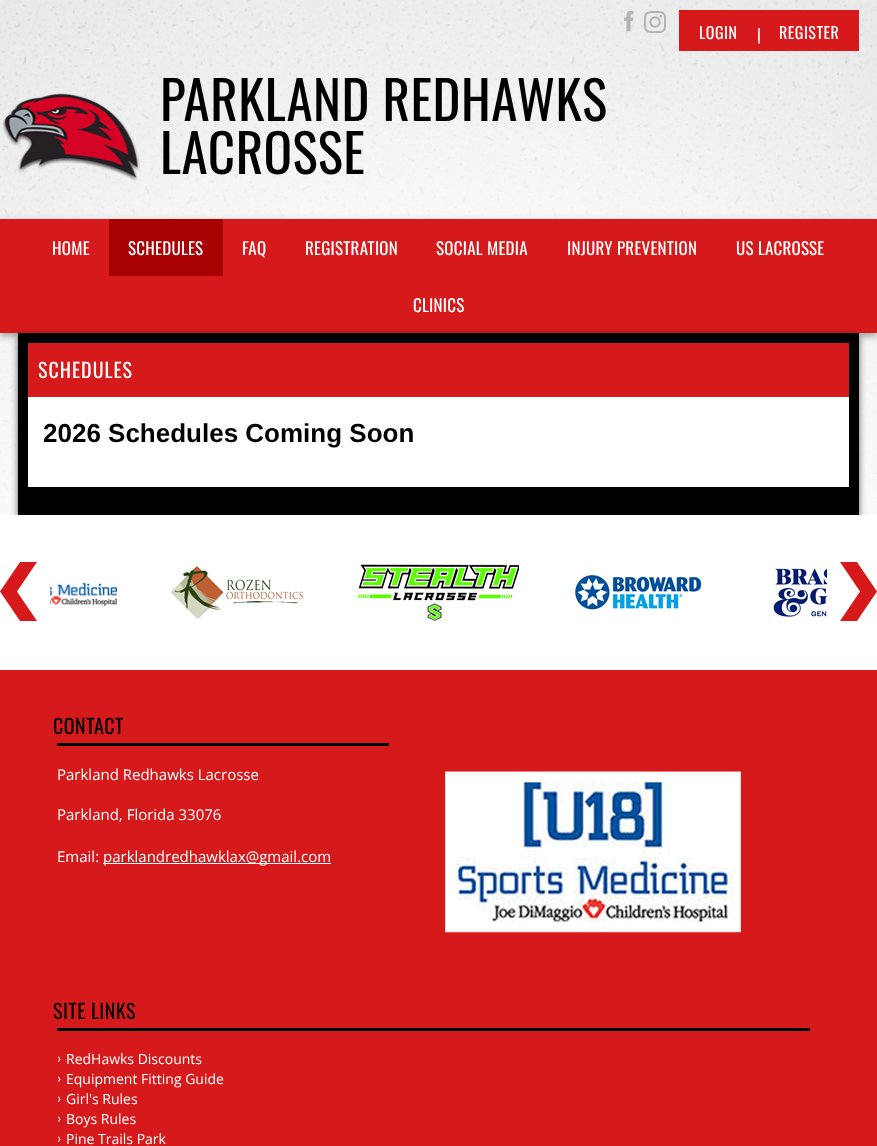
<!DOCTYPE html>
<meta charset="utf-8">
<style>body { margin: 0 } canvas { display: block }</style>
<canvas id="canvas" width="877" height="1146"></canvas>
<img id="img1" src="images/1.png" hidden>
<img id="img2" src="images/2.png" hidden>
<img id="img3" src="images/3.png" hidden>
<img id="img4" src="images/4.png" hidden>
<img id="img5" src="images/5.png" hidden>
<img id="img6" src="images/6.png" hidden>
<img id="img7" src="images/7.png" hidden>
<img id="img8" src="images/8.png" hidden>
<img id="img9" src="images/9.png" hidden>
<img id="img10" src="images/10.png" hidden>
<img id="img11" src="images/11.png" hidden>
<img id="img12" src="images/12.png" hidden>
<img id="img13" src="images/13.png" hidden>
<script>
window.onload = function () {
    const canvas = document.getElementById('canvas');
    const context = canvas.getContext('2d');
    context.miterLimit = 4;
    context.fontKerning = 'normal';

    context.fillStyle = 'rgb(255, 255, 255)';
    context.fillRect(0, 0, 877, 1146);
    context.drawImage(document.getElementById('img1'), 0, 0, 877, 515);
    context.drawImage(document.getElementById('img2'), 0, 0, 877, 515);
    context.drawImage(document.getElementById('img3'), 624, 11, 10, 21);
    context.drawImage(document.getElementById('img4'), 644, 11, 22, 22);
    context.fillStyle = 'rgb(214, 25, 27)';
    context.fillRect(679, 10, 180, 41);
    context.drawImage(document.getElementById('img5'), 3, 93, 137, 88);
    context.fillStyle = 'rgba(0, 0, 0, 0.35)';
    context.filter = 'blur(3.5px)';
    context.beginPath();
    context.rect(0, 222, 877, 114);
    context.fill();
    context.filter = 'none';
    context.fillStyle = 'rgb(214, 25, 27)';
    context.fillRect(0, 219, 877, 114);
    context.fillStyle = 'rgb(167, 1, 2)';
    context.fillRect(109, 219, 114, 57);
    context.fillStyle = 'rgba(0, 0, 0, 0.61)';
    context.filter = 'blur(3.5px)';
    context.beginPath();
    context.rect(18, 336, 841, 182);
    context.fill();
    context.filter = 'none';
    context.fillStyle = 'rgb(0, 0, 0)';
    context.fillRect(18, 333, 841, 182);
    context.fillStyle = 'rgb(214, 25, 27)';
    context.fillRect(28, 343, 821, 54);
    context.fillStyle = 'rgb(255, 255, 255)';
    context.fillRect(28, 397, 821, 90);
    context.fillRect(11, 515, 855, 10);
    context.drawImage(document.getElementById('img6'), 0, 562, 37, 59);
    context.drawImage(document.getElementById('img7'), 50, 582, 67, 25);
    context.drawImage(document.getElementById('img8'), 171, 566, 132, 53);
    context.drawImage(document.getElementById('img9'), 358, 564, 161, 57);
    context.drawImage(document.getElementById('img10'), 575, 575, 127, 35);
    context.drawImage(document.getElementById('img11'), 773, 568, 54, 49);
    context.drawImage(document.getElementById('img12'), 840, 562, 37, 59);
    context.fillStyle = 'rgb(214, 25, 27)';
    context.fillRect(0, 670, 877, 476);
    context.fillStyle = 'rgb(0, 0, 0)';
    context.fillRect(57, 743, 332, 3);
    context.fillStyle = 'rgb(255, 255, 255)';
    context.fillRect(103, 863, 228, 1);
    context.drawImage(document.getElementById('img13'), 445, 771, 296, 162);
    context.fillStyle = 'rgb(0, 0, 0)';
    context.fillRect(57, 1028, 753, 3);
    context.letterSpacing = '0.5px';
    context.font = '16px Oswald';
    context.fillStyle = 'rgb(255, 255, 255)';
    context.fillText('LOGIN', 699, 39);
    context.fillText('|', 757, 41);
    context.fillText('REGISTER', 779, 39);
    context.font = '53px Oswald';
    context.fillStyle = 'rgb(0, 0, 0)';
    context.fillText('PARKLAND REDHAWKS', 160, 121);
    context.fillText('LACROSSE', 160, 174);
    context.letterSpacing = '0.25px';
    context.font = '17px Oswald';
    context.fillStyle = 'rgb(255, 255, 255)';
    context.fillText('HOME', 52, 255);
    context.fillText('SCHEDULES', 128, 255);
    context.fillText('FAQ', 242, 255);
    context.fillText('REGISTRATION', 305, 255);
    context.fillText('SOCIAL MEDIA', 436, 255);
    context.fillText('INJURY PREVENTION', 567, 255);
    context.fillText('US LACROSSE', 736, 255);
    context.fillText('CLINICS', 413, 312);
    context.letterSpacing = '1px';
    context.font = '20px Oswald';
    context.fillText('SCHEDULES', 38, 378);
    context.letterSpacing = '0px';
    context.font = 'bold 26px Liberation Sans';
    context.fillStyle = 'rgb(0, 0, 0)';
    context.fillText('2026 Schedules Coming Soon', 43, 442);
    context.letterSpacing = '0.5px';
    context.font = '20px Oswald';
    context.fillText('CONTACT', 53, 734);
    context.letterSpacing = '0px';
    context.font = '15px Open Sans';
    context.fillStyle = 'rgb(255, 255, 255)';
    context.fillText('Parkland Redhawks Lacrosse', 57, 780);
    context.fillText('Parkland, Florida 33076', 57, 820);
    context.fillText('Email:', 57, 862);
    context.fillText('parklandredhawklax@gmail.com', 103, 862);
    context.letterSpacing = '0.5px';
    context.font = '20px Oswald';
    context.fillStyle = 'rgb(0, 0, 0)';
    context.fillText('SITE LINKS', 53, 1019);
    context.letterSpacing = '0px';
    context.font = '14px Lato';
    context.fillStyle = 'rgb(255, 255, 255)';
    context.fillText('›', 57, 1063);
    context.font = '14px Open Sans';
    context.fillText('RedHawks Discounts', 66, 1064);
    context.font = '14px Lato';
    context.fillText('›', 57, 1083);
    context.font = '14px Open Sans';
    context.fillText('Equipment Fitting Guide', 66, 1084);
    context.font = '14px Lato';
    context.fillText('›', 57, 1103);
    context.font = '14px Open Sans';
    context.fillText('Girl\'s Rules', 66, 1104);
    context.font = '14px Lato';
    context.fillText('›', 57, 1123);
    context.font = '14px Open Sans';
    context.fillText('Boys Rules', 66, 1124);
    context.font = '14px Lato';
    context.fillText('›', 57, 1143);
    context.font = '14px Open Sans';
    context.fillText('Pine Trails Park', 66, 1144);
};
</script>
